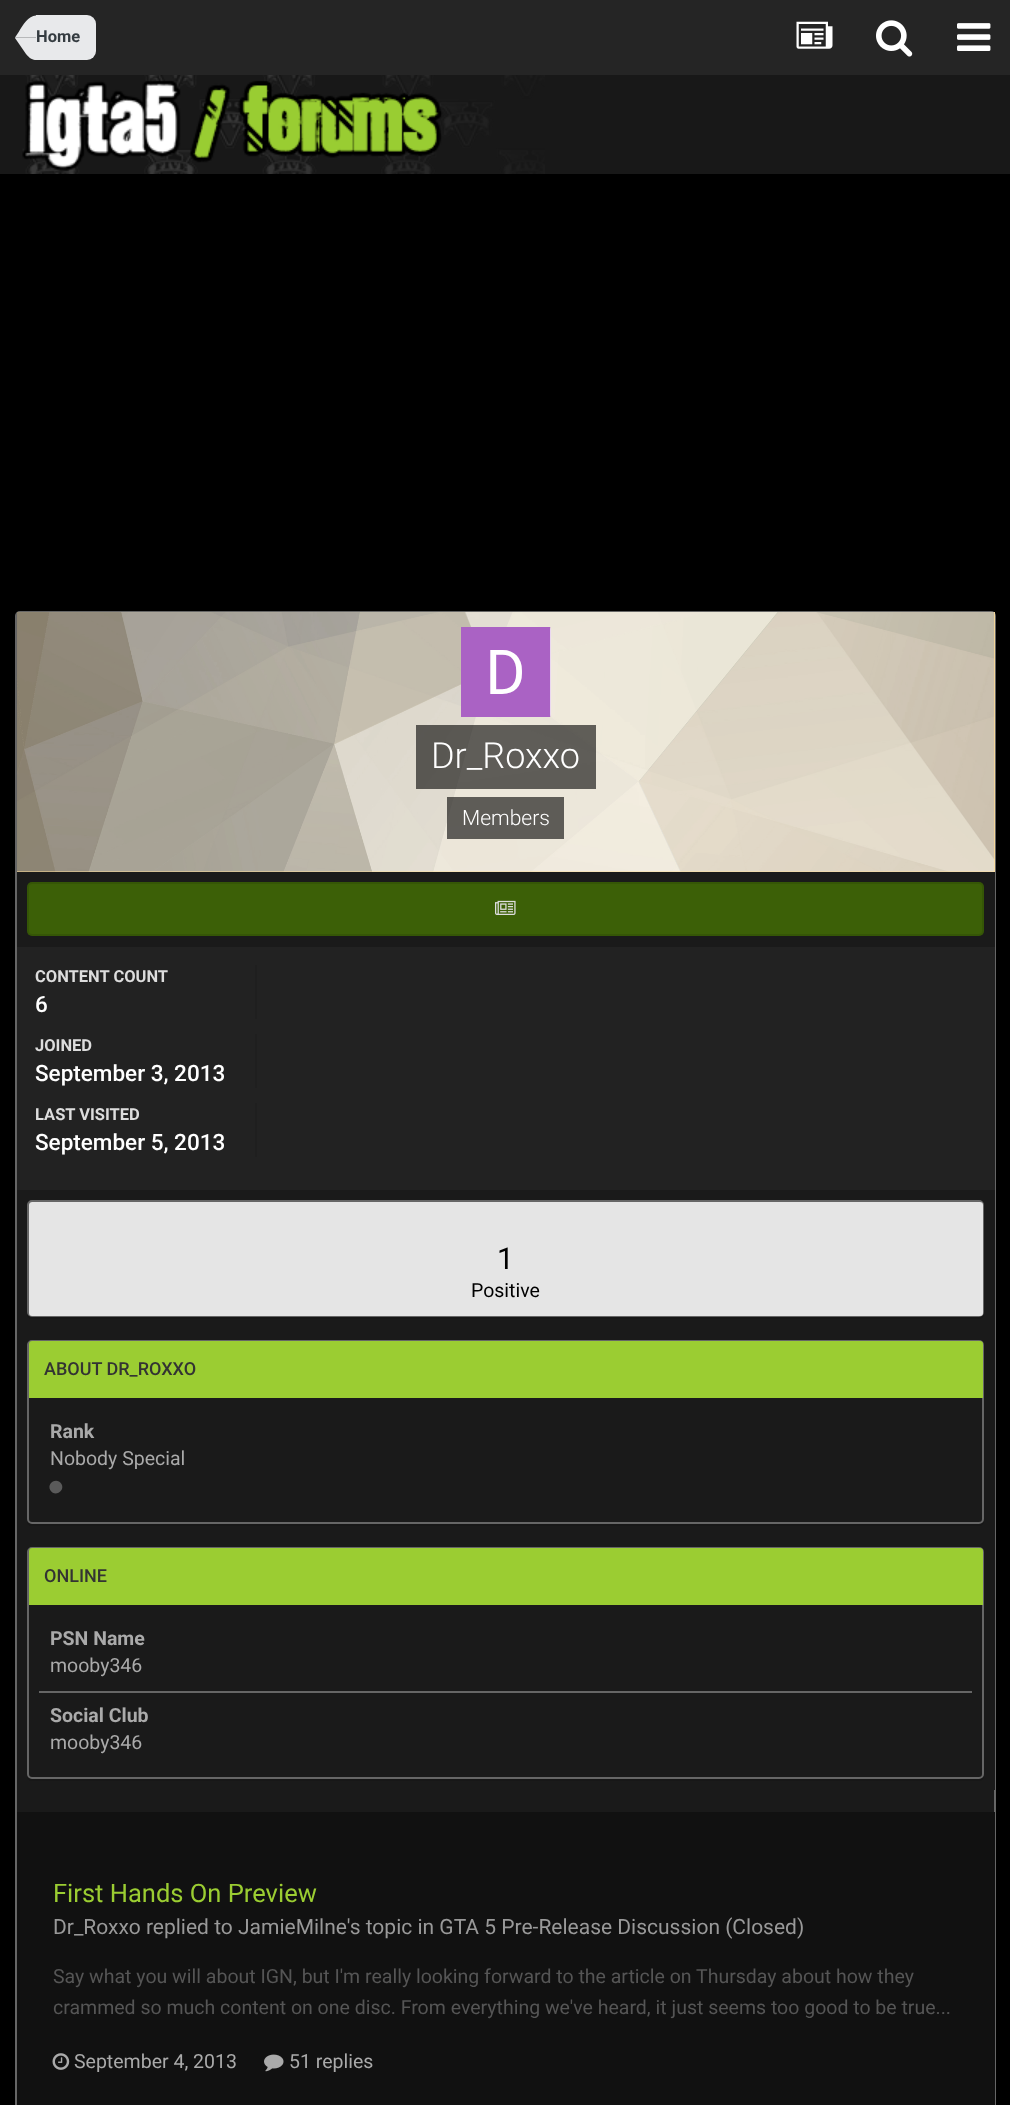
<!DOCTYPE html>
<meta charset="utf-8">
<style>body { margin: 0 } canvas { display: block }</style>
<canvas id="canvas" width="1010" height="2105"></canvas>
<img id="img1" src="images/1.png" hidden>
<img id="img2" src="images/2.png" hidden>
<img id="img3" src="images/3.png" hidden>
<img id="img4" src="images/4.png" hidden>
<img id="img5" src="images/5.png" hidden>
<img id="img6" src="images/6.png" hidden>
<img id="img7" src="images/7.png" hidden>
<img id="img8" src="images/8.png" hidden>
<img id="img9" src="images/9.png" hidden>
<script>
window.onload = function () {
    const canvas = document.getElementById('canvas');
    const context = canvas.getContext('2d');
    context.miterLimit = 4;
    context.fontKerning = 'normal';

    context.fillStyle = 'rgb(0, 0, 0)';
    context.fillRect(0, 0, 1010, 2105);
    context.fillStyle = 'rgb(37, 37, 37)';
    context.fillRect(0, 0, 1010, 75);
    context.fillStyle = 'rgb(232, 233, 235)';
    context.beginPath();
    context.roundRect(36, 15, 60, 45, [0, 9, 9, 0]);
    context.fill();
    context.beginPath();
    context.moveTo(15, 37.5);
    context.lineTo(36, 37.5);
    context.lineTo(36, 60);
    context.bezierCurveTo(33, 60, 29.5, 58.5, 26, 54);
    context.lineTo(15, 38);
    context.closePath();
    context.fill();
    context.beginPath();
    context.moveTo(36, 15.5);
    context.lineTo(36, 37.5);
    context.lineTo(15, 37.5);
    context.lineTo(19, 31.5);
    context.bezierCurveTo(22.5, 25.5, 28.5, 15.5, 36, 15.5);
    context.closePath();
    context.fill();
    context.drawImage(document.getElementById('img1'), 796, 21, 37, 28);
    context.drawImage(document.getElementById('img2'), 876, 20, 37, 37);
    context.drawImage(document.getElementById('img3'), 957, 23, 34, 28);
    context.fillStyle = 'rgb(24, 24, 24)';
    context.fillRect(0, 75, 1010, 99);
    context.drawImage(document.getElementById('img4'), 22, 75, 523, 99);
    context.fillStyle = 'rgb(26, 26, 26)';
    context.beginPath();
    context.roundRect(16, 612, 979, 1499, 4);
    context.fill();
    context.strokeStyle = 'rgb(102, 102, 102)';
    context.lineWidth = 2;
    context.stroke();
    context.fillStyle = 'rgb(255, 223, 153)';
    context.fillRect(17, 612, 978, 260);
    context.drawImage(document.getElementById('img5'), 16, 612, 979, 260);
    context.fillStyle = 'rgb(255, 255, 255)';
    context.beginPath();
    context.roundRect(461, 627, 90, 90, 3);
    context.fill();
    context.drawImage(document.getElementById('img6'), 461, 627, 90, 90);
    context.fillStyle = 'rgba(0, 0, 0, 0.6)';
    context.fillRect(416, 725, 180, 64);
    context.fillRect(447, 797, 117, 42);
    context.fillStyle = 'rgb(26, 26, 26)';
    context.fillRect(994, 872, 1, 75);
    context.fillStyle = 'rgb(60, 96, 7)';
    context.beginPath();
    context.roundRect(27, 882, 957, 54, 5);
    context.fill();
    context.beginPath();
    context.roundRect(28, 883, 955, 52, 4);
    context.strokeStyle = 'rgba(0, 0, 0, 0.1)';
    context.stroke();
    context.drawImage(document.getElementById('img7'), 495, 900, 21, 15);
    context.fillStyle = 'rgb(34, 34, 34)';
    context.fillRect(17, 947, 978, 243);
    context.fillStyle = 'rgb(31, 31, 31)';
    context.fillRect(255, 965, 2, 54);
    context.fillRect(255, 1034, 2, 54);
    context.fillRect(255, 1103, 2, 54);
    context.fillStyle = 'rgb(26, 26, 26)';
    context.fillRect(994, 1190, 1, 600);
    context.fillStyle = 'rgb(23, 23, 23)';
    context.beginPath();
    context.moveTo(27, 1312);
    context.lineTo(27, 1314);
    context.bezierCurveTo(27, 1317, 29, 1319, 32, 1319);
    context.lineTo(979, 1319);
    context.bezierCurveTo(982, 1319, 984, 1317, 984, 1314);
    context.lineTo(984, 1312);
    context.bezierCurveTo(984, 1315, 982, 1317, 980, 1317);
    context.lineTo(32, 1317);
    context.bezierCurveTo(29, 1317, 27, 1315, 27, 1312);
    context.closePath();
    context.fill();
    context.beginPath();
    context.roundRect(28, 1201, 955, 115, 4);
    context.strokeStyle = 'rgb(102, 102, 102)';
    context.stroke();
    context.fillStyle = 'rgb(229, 229, 229)';
    context.beginPath();
    context.roundRect(29, 1202, 954, 114, 3);
    context.fill();
    context.fillStyle = 'rgb(23, 23, 23)';
    context.beginPath();
    context.moveTo(27, 1520);
    context.lineTo(27, 1521);
    context.bezierCurveTo(27, 1524, 29, 1526, 32, 1526);
    context.lineTo(979, 1526);
    context.bezierCurveTo(982, 1526, 984, 1524, 984, 1521);
    context.lineTo(984, 1520);
    context.bezierCurveTo(984, 1522, 982, 1524, 980, 1524);
    context.lineTo(32, 1524);
    context.bezierCurveTo(29, 1524, 27, 1522, 27, 1520);
    context.closePath();
    context.fill();
    context.beginPath();
    context.roundRect(28, 1341, 955, 182, 4);
    context.stroke();
    context.fillStyle = 'rgb(155, 205, 50)';
    context.beginPath();
    context.roundRect(29, 1341, 954, 57, [3, 3, 0, 0]);
    context.fill();
    context.fillStyle = 'rgb(90, 90, 90)';
    context.beginPath();
    context.moveTo(61.5, 1484);
    context.bezierCurveTo(65.5, 1491, 54.5, 1497.5, 50.5, 1490.5);
    context.bezierCurveTo(46, 1483, 57, 1476.5, 61.5, 1484);
    context.closePath();
    context.fill();
    context.fillStyle = 'rgb(23, 23, 23)';
    context.beginPath();
    context.moveTo(27, 1774);
    context.lineTo(27, 1776);
    context.bezierCurveTo(27, 1779, 29, 1781, 32, 1781);
    context.lineTo(979, 1781);
    context.bezierCurveTo(982, 1781, 984, 1779, 984, 1776);
    context.lineTo(984, 1774);
    context.bezierCurveTo(984, 1777, 982, 1779, 980, 1779);
    context.lineTo(32, 1779);
    context.bezierCurveTo(29, 1779, 27, 1777, 27, 1774);
    context.closePath();
    context.fill();
    context.beginPath();
    context.roundRect(28, 1548, 955, 230, 4);
    context.stroke();
    context.fillStyle = 'rgb(155, 205, 50)';
    context.beginPath();
    context.roundRect(29, 1548, 954, 57, [3, 3, 0, 0]);
    context.fill();
    context.fillStyle = 'rgb(102, 102, 102)';
    context.fillRect(39, 1691, 933, 2);
    context.fillStyle = 'rgb(17, 17, 17)';
    context.fillRect(17, 1812, 978, 293);
    context.drawImage(document.getElementById('img8'), 52, 2053, 18, 17);
    context.drawImage(document.getElementById('img9'), 264, 2054, 20, 18);
    context.font = 'bold 16.5px Roboto';
    context.fillStyle = 'rgb(53, 60, 65)';
    context.fillText('Home', 36, 42);
    context.font = '300 36px Roboto';
    context.fillStyle = 'rgb(255, 255, 255)';
    context.fillText('Dr_Roxxo', 431, 768);
    context.font = '300 21px Roboto';
    context.fillText('Members', 462, 825);
    context.font = 'bold 16.5px Roboto';
    context.fillStyle = 'rgb(221, 221, 221)';
    context.fillText('CONTENT COUNT', 35, 982);
    context.font = '500 22.5px Roboto';
    context.fillStyle = 'rgb(255, 255, 255)';
    context.fillText('6', 35, 1012);
    context.font = 'bold 16.5px Roboto';
    context.fillStyle = 'rgb(221, 221, 221)';
    context.fillText('JOINED', 35, 1051);
    context.font = '500 22.5px Roboto';
    context.fillStyle = 'rgb(255, 255, 255)';
    context.fillText('September 3, 2013', 35, 1081);
    context.font = 'bold 16.5px Roboto';
    context.fillStyle = 'rgb(221, 221, 221)';
    context.fillText('LAST VISITED', 35, 1120);
    context.font = '500 22.5px Roboto';
    context.fillStyle = 'rgb(255, 255, 255)';
    context.fillText('September 5, 2013', 35, 1150);
    context.font = '30px Roboto';
    context.fillStyle = 'rgb(0, 0, 0)';
    context.fillText('1', 497, 1269);
    context.font = '19.5px Roboto';
    context.fillText('Positive', 471, 1297);
    context.font = '500 18px Roboto';
    context.fillStyle = 'rgb(51, 51, 51)';
    context.fillText('ABOUT DR_ROXXO', 44, 1375);
    context.font = 'bold 19.5px Roboto';
    context.fillStyle = 'rgb(170, 170, 170)';
    context.fillText('Rank', 50, 1438);
    context.font = '19.5px Roboto';
    context.fillText('Nobody Special', 50, 1465);
    context.font = '500 18px Roboto';
    context.fillStyle = 'rgb(51, 51, 51)';
    context.fillText('ONLINE', 44, 1582);
    context.font = 'bold 19.5px Roboto';
    context.fillStyle = 'rgb(170, 170, 170)';
    context.fillText('PSN Name', 50, 1645);
    context.font = '19.5px Roboto';
    context.fillText('mooby346', 50, 1672);
    context.font = 'bold 19.5px Roboto';
    context.fillText('Social Club', 50, 1722);
    context.font = '19.5px Roboto';
    context.fillText('mooby346', 50, 1749);
    context.font = '25.5px Roboto';
    context.fillStyle = 'rgb(155, 205, 50)';
    context.fillText('First Hands On Preview', 53, 1902);
    context.font = '21px Roboto';
    context.fillStyle = 'rgb(153, 153, 153)';
    context.fillText('Dr_Roxxo replied to JamieMilne\'s topic in GTA 5 Pre-Release Discussion (Closed)', 53, 1934);
    context.font = '19.5px Roboto';
    context.fillStyle = 'rgb(85, 85, 85)';
    context.fillText('Say what you will about IGN, but I\'m really looking forward to the article on Thursday about how they', 53, 1983);
    context.fillText('crammed so much content on one disc. From everything we\'ve heard, it just seems too good to be true...', 53, 2014);
    context.fillStyle = 'rgb(170, 170, 170)';
    context.fillText('September 4, 2013', 74, 2068);
    context.fillText('51 replies', 289, 2068);
};
</script>
